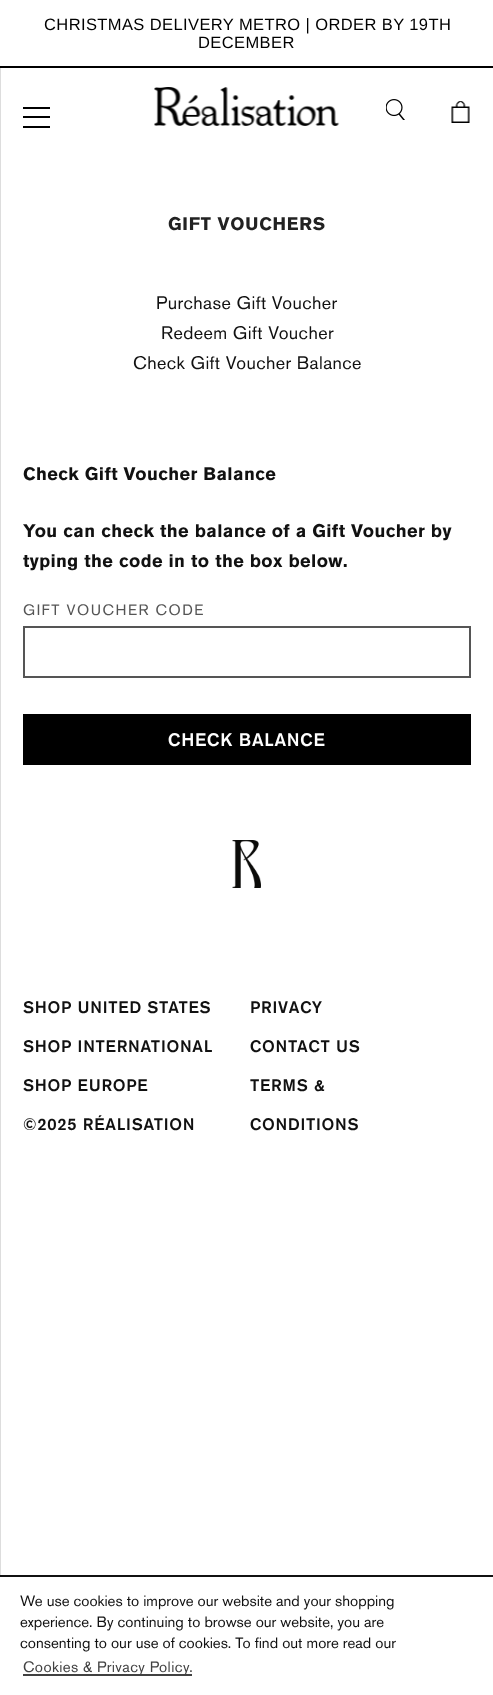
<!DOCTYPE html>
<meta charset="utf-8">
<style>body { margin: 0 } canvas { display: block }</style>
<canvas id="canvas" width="493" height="1695"></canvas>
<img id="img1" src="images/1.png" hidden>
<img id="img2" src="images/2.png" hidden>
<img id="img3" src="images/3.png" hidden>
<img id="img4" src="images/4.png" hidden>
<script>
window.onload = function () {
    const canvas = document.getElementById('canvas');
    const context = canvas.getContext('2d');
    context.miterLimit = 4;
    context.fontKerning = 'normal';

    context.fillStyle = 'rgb(255, 255, 255)';
    context.fillRect(0, 0, 493, 1695);
    context.fillStyle = 'rgb(0, 0, 0)';
    context.fillRect(0, 66, 493, 2);
    context.drawImage(document.getElementById('img1'), 154, 87, 186, 39);
    context.strokeStyle = 'rgb(85, 85, 85)';
    context.lineWidth = 2;
    context.strokeRect(24, 627, 446, 50);
    context.fillRect(23, 714, 448, 51);
    context.fillStyle = 'rgb(221, 221, 221)';
    context.fillRect(0, 68, 1, 1507);
    context.fillStyle = 'rgb(0, 0, 0)';
    context.fillRect(23, 116, 27, 2);
    context.fillRect(23, 107, 27, 2);
    context.fillRect(23, 126, 27, 2);
    context.drawImage(document.getElementById('img2'), 386, 99, 19, 21);
    context.drawImage(document.getElementById('img3'), 451, 101, 19, 22);
    context.drawImage(document.getElementById('img4'), 232, 840, 29, 48);
    context.fillStyle = 'rgb(17, 17, 17)';
    context.fillRect(0, 1575, 493, 2);
    context.fillStyle = 'rgb(65, 65, 65)';
    context.fillRect(23, 1674, 169, 2);
    context.letterSpacing = '0.4px';
    context.font = '16.5px Liberation Sans';
    context.fillStyle = 'rgb(0, 0, 0)';
    context.fillText('CHRISTMAS DELIVERY METRO | ORDER BY 19TH', 44, 30);
    context.fillText('DECEMBER', 198, 48);
    context.letterSpacing = '0.75px';
    context.font = 'bold 18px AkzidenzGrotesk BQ';
    context.fillStyle = 'rgb(34, 34, 34)';
    context.fillText('GIFT VOUCHERS', 168, 230);
    context.letterSpacing = '0.4px';
    context.font = '500 18px "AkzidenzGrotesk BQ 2"';
    context.fillStyle = 'rgb(17, 17, 17)';
    context.fillText('Purchase Gift Voucher', 156, 309);
    context.fillText('Redeem Gift Voucher', 161, 339);
    context.fillText('Check Gift Voucher Balance', 133, 369);
    context.font = 'bold 18px AkzidenzGrotesk BQ';
    context.fillText('Check Gift Voucher Balance', 23, 480);
    context.fillText('You can check the balance of a Gift Voucher by', 23, 537);
    context.fillText('typing the code in to the box below.', 23, 567);
    context.letterSpacing = '1.5px';
    context.font = '500 15px "AkzidenzGrotesk BQ 2"';
    context.fillStyle = 'rgb(85, 85, 85)';
    context.fillText('GIFT VOUCHER CODE', 23, 615);
    context.letterSpacing = '0.75px';
    context.font = '500 18px AkzidenzGrotesk BQ';
    context.fillStyle = 'rgb(255, 255, 255)';
    context.fillText('CHECK BALANCE', 168, 746);
    context.font = '500 16.5px AkzidenzGrotesk BQ';
    context.fillStyle = 'rgb(17, 17, 17)';
    context.fillText('SHOP UNITED STATES', 23, 1013);
    context.fillText('SHOP INTERNATIONAL', 23, 1052);
    context.fillText('SHOP EUROPE', 23, 1091);
    context.fillText('©2025 RÉALISATION', 23, 1130);
    context.fillText('PRIVACY', 250, 1013);
    context.fillText('CONTACT US', 250, 1052);
    context.fillText('TERMS &', 250, 1091);
    context.fillText('CONDITIONS', 250, 1130);
    context.letterSpacing = '0px';
    context.font = '500 15px "AkzidenzGrotesk BQ 2"';
    context.fillText('We use cookies to improve our website and your shopping', 20, 1606);
    context.fillText('experience. By continuing to browse our website, you are', 20, 1627);
    context.fillText('consenting to our use of cookies. To find out more read our', 20, 1648);
    context.letterSpacing = '0.4px';
    context.fillStyle = 'rgb(65, 65, 65)';
    context.fillText('Cookies & Privacy Policy.', 23, 1672);
};
</script>
